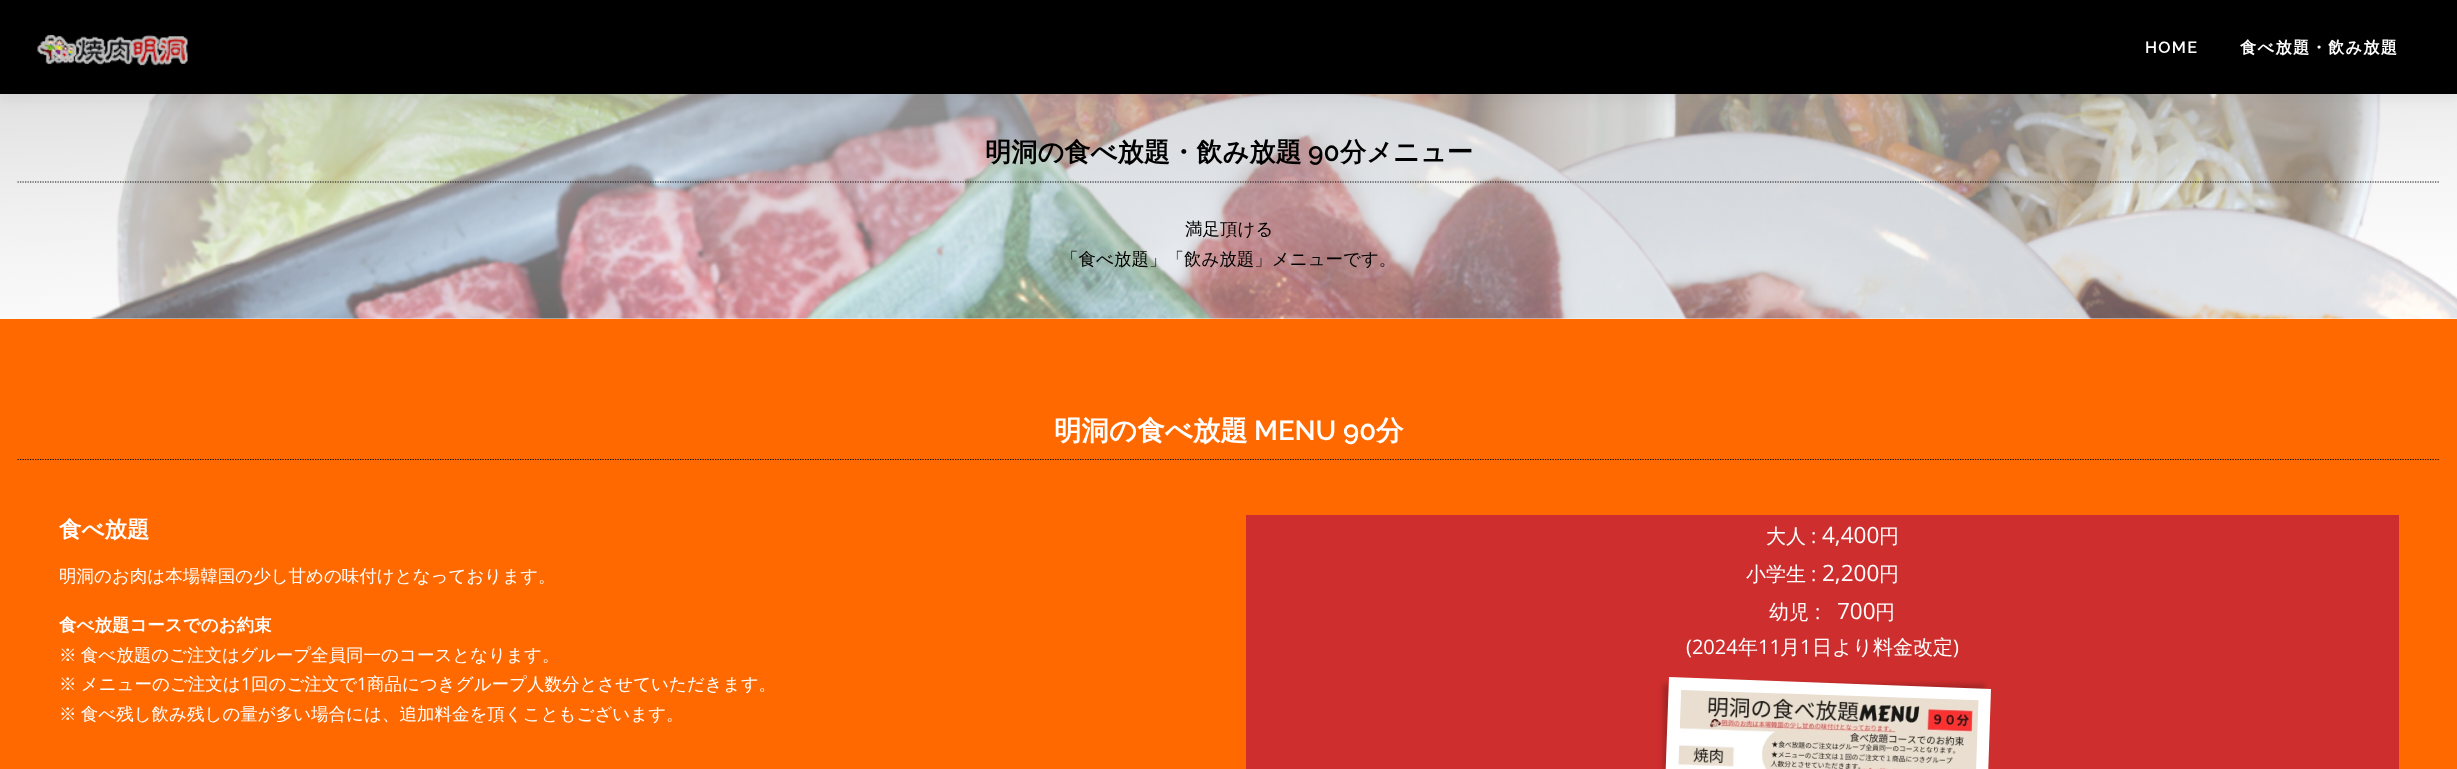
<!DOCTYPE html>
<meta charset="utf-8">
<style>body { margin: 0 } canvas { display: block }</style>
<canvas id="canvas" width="2457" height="769"></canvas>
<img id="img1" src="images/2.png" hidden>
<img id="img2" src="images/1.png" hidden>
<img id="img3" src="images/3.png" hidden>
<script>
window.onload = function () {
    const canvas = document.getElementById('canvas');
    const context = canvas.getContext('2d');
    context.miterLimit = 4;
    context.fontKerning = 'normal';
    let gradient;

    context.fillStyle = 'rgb(255, 255, 255)';
    context.fillRect(0, 0, 2457, 769);
    context.drawImage(document.getElementById('img1'), 90, 94, 2367, 225);
    gradient = context.createLinearGradient(1234, 361, 1223, 51);
    gradient.addColorStop(0, 'rgba(255, 255, 255, 0.35)');
    gradient.addColorStop(1, 'rgba(212, 212, 212, 0.7)');
    context.fillStyle = gradient;
    context.fillRect(0, 94, 2457, 225);
    context.fillStyle = 'rgba(50, 50, 50, 0.06)';
    context.filter = 'blur(6px)';
    context.beginPath();
    context.rect(0, 6, 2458, 94);
    context.fill();
    context.filter = 'none';
    context.fillStyle = 'rgb(0, 0, 0)';
    context.fillRect(0, 0, 2457, 94);
    context.drawImage(document.getElementById('img2'), 37, 34, 151, 32);
    context.beginPath();
    context.moveTo(17.5, 182);
    context.lineTo(2440, 182);
    context.strokeStyle = 'rgb(17, 17, 17)';
    context.lineWidth = 1.2;
    context.setLineDash([1.25, 1.25]);
    context.stroke();
    context.fillStyle = 'rgb(255, 105, 0)';
    context.fillRect(0, 319, 2457, 450);
    context.beginPath();
    context.moveTo(17.5, 459.5);
    context.lineTo(2440, 459.5);
    context.stroke();
    context.fillStyle = 'rgb(207, 46, 46)';
    context.fillRect(1246, 515, 1153, 254);
    context.fillStyle = 'rgba(0, 0, 0, 0.2)';
    context.filter = 'blur(2.5px)';
    context.beginPath();
    context.rect(1663, 684, 322, 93);
    context.fill();
    context.filter = 'none';
    context.fillStyle = 'rgb(255, 255, 255)';
    context.beginPath();
    context.moveTo(1669, 677);
    context.lineTo(1991, 689);
    context.lineTo(1976, 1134);
    context.lineTo(1653, 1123);
    context.closePath();
    context.fill();
    context.drawImage(document.getElementById('img3'), 1678, 690, 301, 79);
    context.letterSpacing = '1.25px';
    context.font = '600 16.25px Raleway';
    context.fillText('HOME', 2145, 53);
    context.font = 'bold 16.25px WenQuanYi Zen Hei';
    context.fillText('食べ放題・飲み放題', 2240, 53);
    context.letterSpacing = '0px';
    context.font = 'bold 26.25px WenQuanYi Zen Hei';
    context.fillStyle = 'rgb(0, 0, 0)';
    context.fillText('明洞の食べ放題・飲み放題', 985, 161);
    context.font = '600 26.25px Raleway';
    context.fillText('90', 1308, 161);
    context.font = 'bold 26.25px WenQuanYi Zen Hei';
    context.fillText('分メニュー', 1340, 161);
    context.font = '500 17.5px WenQuanYi Zen Hei';
    context.fillText('満足頂ける', 1185, 235);
    context.fillText('「食べ放題」「飲み放題」メニューです。', 1061, 265);
    context.font = 'bold 27.5px WenQuanYi Zen Hei';
    context.fillStyle = 'rgb(255, 255, 255)';
    context.fillText('明洞の食べ放題', 1054, 440);
    context.font = '600 27.5px Raleway';
    context.fillText('MENU 90', 1254, 440);
    context.font = 'bold 27.5px WenQuanYi Zen Hei';
    context.fillText('分', 1376, 440);
    context.font = 'bold 22.5px WenQuanYi Zen Hei';
    context.fillText('食べ放題', 59, 537);
    context.font = '500 17.5px WenQuanYi Zen Hei';
    context.fillText('明洞のお肉は本場韓国の少し甘めの味付けとなっております。', 59, 582);
    context.font = 'bold 17.5px WenQuanYi Zen Hei';
    context.fillText('食べ放題コースでのお約束', 59, 631);
    context.wordSpacing = '-1px';
    context.font = '500 17.5px WenQuanYi Zen Hei';
    context.fillText('※ 食べ放題のご注文はグループ全員同一のコースとなります。', 59, 661);
    context.fillText('※ メニューのご注文は', 59, 690);
    context.wordSpacing = '0px';
    context.font = '17.5px Open Sans';
    context.fillText('1', 241, 690);
    context.font = '500 17.5px WenQuanYi Zen Hei';
    context.fillText('回のご注文で', 251, 690);
    context.font = '17.5px Open Sans';
    context.fillText('1', 357, 690);
    context.font = '500 17.5px WenQuanYi Zen Hei';
    context.fillText('商品につきグループ人数分とさせていただきます。', 367, 690);
    context.wordSpacing = '-1px';
    context.fillText('※ 食べ残し飲み残しの量が多い場合には、追加料金を頂くこともございます。', 59, 720);
    context.wordSpacing = '0px';
    context.font = '500 20px WenQuanYi Zen Hei';
    context.fillText('大人', 1766, 543);
    context.font = '20px Open Sans';
    context.fillText(':', 1811, 543);
    context.font = '22.5px Open Sans';
    context.fillText('4,400', 1822, 543);
    context.font = '500 20px WenQuanYi Zen Hei';
    context.fillText('円', 1879, 543);
    context.fillText('小学生', 1746, 581);
    context.font = '20px Open Sans';
    context.fillText(':', 1811, 581);
    context.font = '22.5px Open Sans';
    context.fillText('2,200', 1822, 581);
    context.font = '500 20px WenQuanYi Zen Hei';
    context.fillText('円', 1879, 581);
    context.fillText('幼児', 1769, 619);
    context.font = '20px Open Sans';
    context.fillText(':', 1815, 619);
    context.font = '22.5px Open Sans';
    context.fillText('700', 1837, 619);
    context.font = '500 20px WenQuanYi Zen Hei';
    context.fillText('円', 1875, 619);
    context.font = '20px Open Sans';
    context.fillText('(2024', 1686, 654);
    context.font = '500 20px WenQuanYi Zen Hei';
    context.fillText('年', 1738, 654);
    context.font = '20px Open Sans';
    context.fillText('11', 1758, 654);
    context.font = '500 20px WenQuanYi Zen Hei';
    context.fillText('月', 1780, 654);
    context.font = '20px Open Sans';
    context.fillText('1', 1800, 654);
    context.font = '500 20px WenQuanYi Zen Hei';
    context.fillText('日より料金改定', 1812, 654);
    context.font = '20px Open Sans';
    context.fillText(')', 1953, 654);
};
</script>
